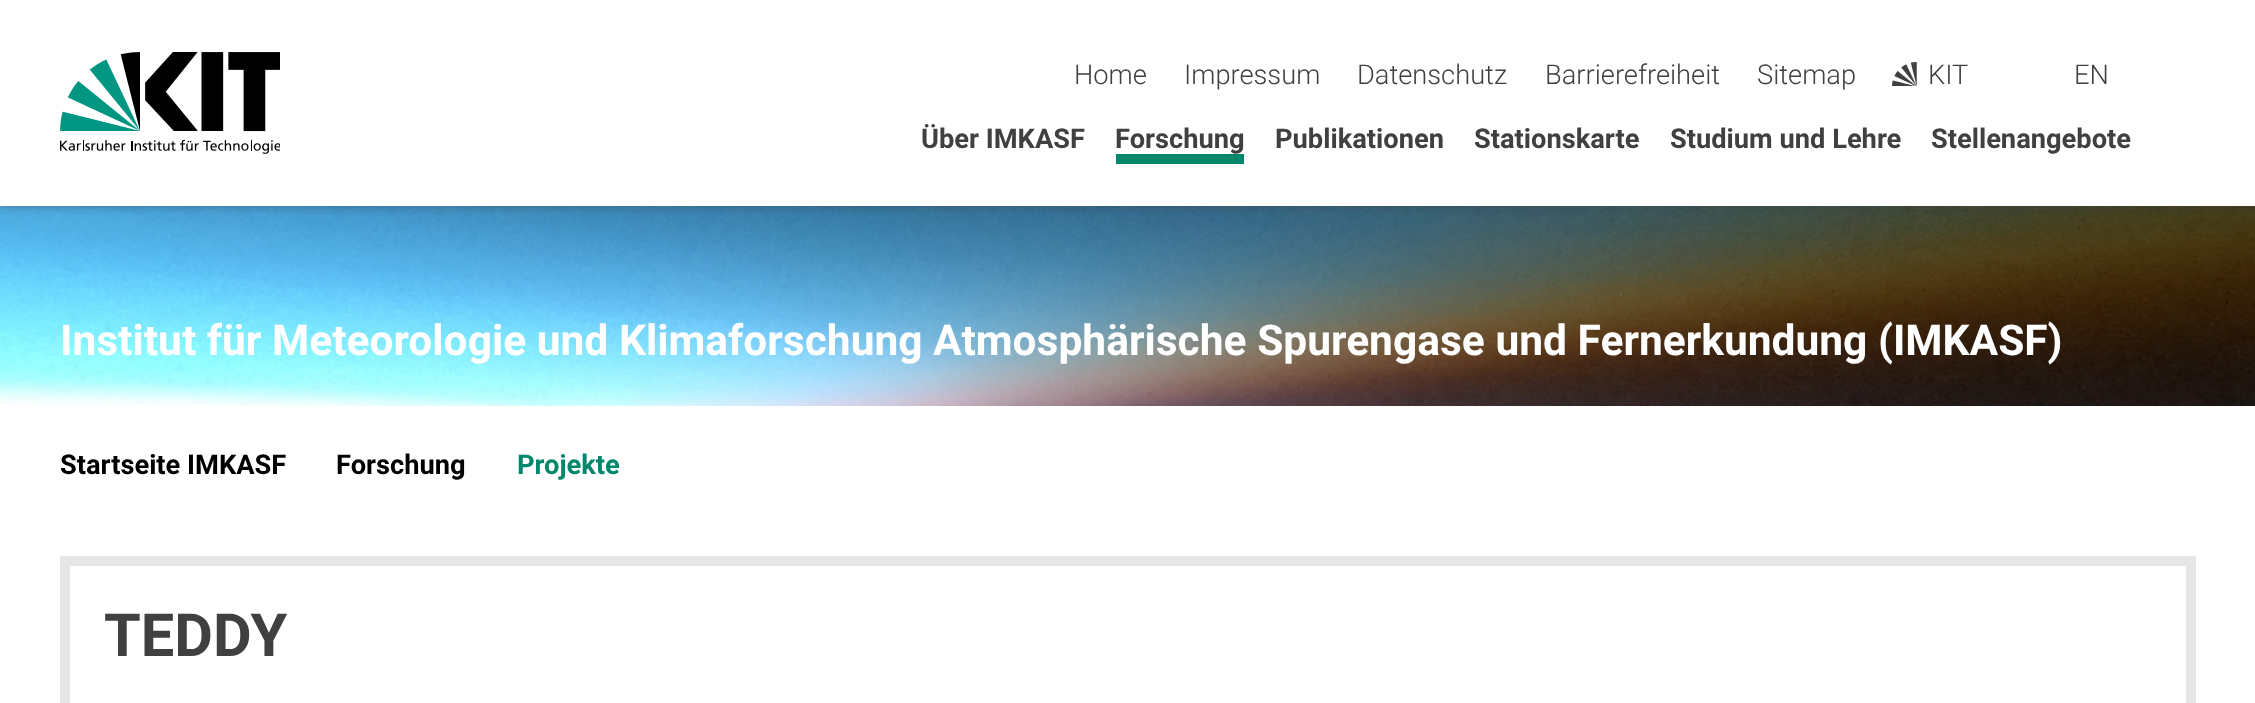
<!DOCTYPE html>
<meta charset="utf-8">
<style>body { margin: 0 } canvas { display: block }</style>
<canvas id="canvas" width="2255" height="703"></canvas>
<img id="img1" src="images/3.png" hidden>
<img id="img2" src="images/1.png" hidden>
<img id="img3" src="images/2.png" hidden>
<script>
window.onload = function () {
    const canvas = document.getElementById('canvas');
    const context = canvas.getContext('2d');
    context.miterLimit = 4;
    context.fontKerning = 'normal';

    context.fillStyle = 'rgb(255, 255, 255)';
    context.fillRect(0, 0, 2255, 703);
    context.drawImage(document.getElementById('img1'), 0, 206, 2255, 200);
    context.save();
    context.beginPath();
    context.rect(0, 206, 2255, 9);
    context.clip();
    context.fillStyle = 'rgba(64, 64, 64, 0.5)';
    context.filter = 'blur(5px)';
    context.beginPath();
    context.rect(0, 0, 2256, 206);
    context.fill();
    context.filter = 'none';
    context.restore();
    context.drawImage(document.getElementById('img2'), 60, 52, 220, 102);
    context.drawImage(document.getElementById('img3'), 1892, 62, 25, 24);
    context.fillStyle = 'rgb(0, 135, 108)';
    context.fillRect(1116, 154, 128, 10);
    context.strokeStyle = 'rgb(230, 230, 230)';
    context.lineWidth = 10;
    context.strokeRect(65, 561, 2126, 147);
    context.font = '300 27.25px Roboto';
    context.fillStyle = 'rgb(64, 64, 64)';
    context.fillText('Home', 1074, 84);
    context.fillText('Impressum', 1184, 84);
    context.fillText('Datenschutz', 1357, 84);
    context.fillText('Barrierefreiheit', 1545, 84);
    context.fillText('Sitemap', 1757, 84);
    context.fillText('KIT', 1928, 84);
    context.fillText('EN', 2074, 84);
    context.font = 'bold 27.25px Roboto';
    context.fillText('Über IMKASF', 921, 148);
    context.fillText('Forschung', 1115, 148);
    context.fillText('Publikationen', 1275, 148);
    context.fillText('Stationskarte', 1474, 148);
    context.fillText('Studium und Lehre', 1670, 148);
    context.fillText('Stellenangebote', 1931, 148);
    context.font = 'bold 42.5px Roboto';
    context.fillStyle = 'rgb(255, 255, 255)';
    context.fillText('Institut für Meteorologie und Klimaforschung Atmosphärische Spurengase und Fernerkundung (IMKASF)', 60, 355);
    context.font = 'bold 27.25px Roboto';
    context.fillStyle = 'rgb(0, 0, 0)';
    context.fillText('Startseite IMKASF', 60, 474);
    context.fillText('Forschung', 336, 474);
    context.fillStyle = 'rgb(0, 135, 108)';
    context.fillText('Projekte', 517, 474);
    context.font = 'bold 59.5px Roboto';
    context.fillStyle = 'rgb(64, 64, 64)';
    context.fillText('TEDDY', 104, 656);
};
</script>
